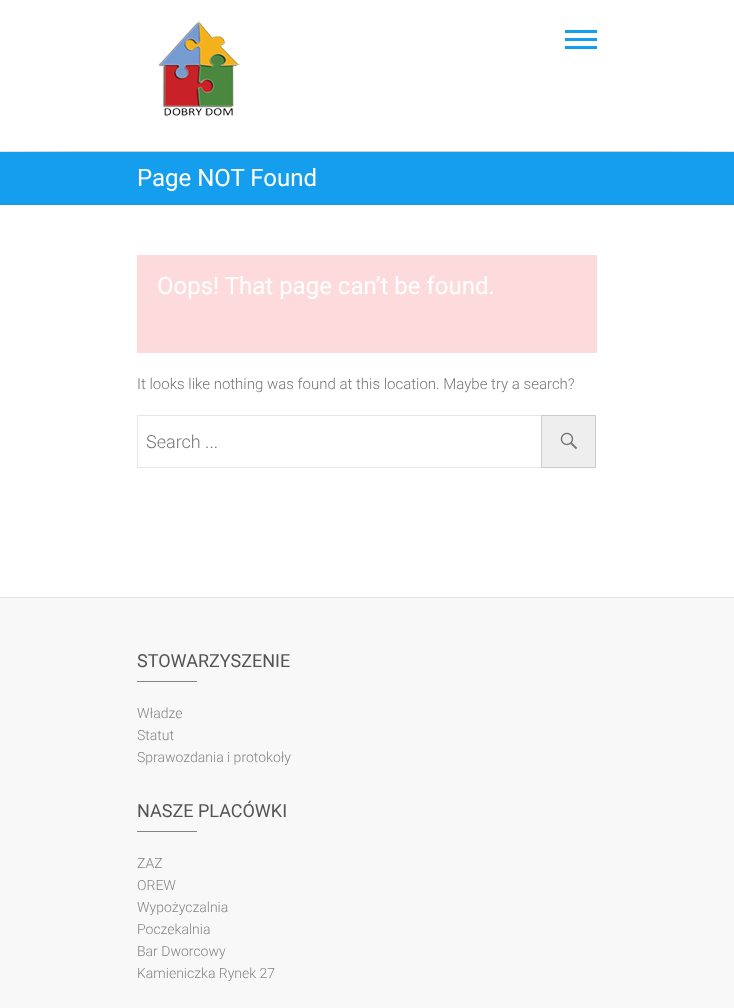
<!DOCTYPE html>
<meta charset="utf-8">
<style>body { margin: 0 } canvas { display: block }</style>
<canvas id="canvas" width="734" height="1008"></canvas>
<img id="img1" src="images/1.png" hidden>
<img id="img2" src="images/2.png" hidden>
<script>
window.onload = function () {
    const canvas = document.getElementById('canvas');
    const context = canvas.getContext('2d');
    context.miterLimit = 4;
    context.fontKerning = 'normal';
    let gradient;

    context.fillStyle = 'rgb(255, 255, 255)';
    context.fillRect(0, 0, 734, 1008);
    context.drawImage(document.getElementById('img1'), 158, 21, 82, 96);
    context.fillStyle = 'rgb(21, 158, 238)';
    context.fillRect(565, 30, 32, 3);
    context.fillRect(565, 38, 32, 3);
    context.fillRect(565, 46, 32, 3);
    gradient = context.createLinearGradient(0, 152, 734, 151);
    gradient.addColorStop(0, 'rgb(230, 230, 230)');
    gradient.addColorStop(0.1, 'rgb(207, 207, 207)');
    gradient.addColorStop(0.9, 'rgb(207, 207, 207)');
    gradient.addColorStop(1, 'rgb(230, 230, 230)');
    context.fillStyle = gradient;
    context.fillRect(0, 151, 734, 1);
    context.fillStyle = 'rgb(21, 158, 238)';
    context.fillRect(0, 152, 734, 53);
    context.fillStyle = 'rgb(253, 219, 221)';
    context.fillRect(137, 255, 460, 98);
    context.strokeStyle = 'rgb(230, 230, 230)';
    context.strokeRect(137.5, 415.5, 404, 52);
    context.fillStyle = 'rgb(238, 238, 238)';
    context.beginPath();
    context.rect(541.5, 415.5, 54, 52);
    context.fill();
    context.strokeStyle = 'rgb(204, 204, 204)';
    context.stroke();
    context.drawImage(document.getElementById('img2'), 560, 432, 18, 18);
    context.fillStyle = 'rgb(230, 230, 230)';
    context.fillRect(0, 597, 734, 1);
    context.fillStyle = 'rgb(248, 248, 248)';
    context.fillRect(0, 598, 734, 410);
    context.fillStyle = 'rgb(132, 132, 132)';
    context.fillRect(137, 681, 60, 1);
    context.fillRect(137, 831, 60, 1);
    context.font = '24px Roboto';
    context.fillStyle = 'rgb(255, 255, 255)';
    context.fillText('Page NOT Found', 137, 186);
    context.fillText('Oops! That page can’t be found.', 157, 294);
    context.font = '300 15px Roboto';
    context.fillStyle = 'rgb(117, 117, 117)';
    context.fillText('It looks like nothing was found at this location. Maybe try a search?', 137, 389);
    context.font = '300 18px Roboto';
    context.fillText('Search ...', 146, 448);
    context.font = '18px Roboto';
    context.fillStyle = 'rgb(84, 84, 84)';
    context.fillText('STOWARZYSZENIE', 137, 667);
    context.font = '300 14px Roboto';
    context.fillStyle = 'rgb(132, 132, 132)';
    context.fillText('Władze', 137, 718);
    context.fillText('Statut', 137, 740);
    context.fillText('Sprawozdania i protokoły', 137, 762);
    context.font = '18px Roboto';
    context.fillStyle = 'rgb(84, 84, 84)';
    context.fillText('NASZE PLACÓWKI', 137, 817);
    context.font = '300 14px Roboto';
    context.fillStyle = 'rgb(132, 132, 132)';
    context.fillText('ZAZ', 137, 868);
    context.fillText('OREW', 137, 890);
    context.fillText('Wypożyczalnia', 137, 912);
    context.fillText('Poczekalnia', 137, 934);
    context.fillText('Bar Dworcowy', 137, 956);
    context.fillText('Kamieniczka Rynek 27', 137, 978);
};
</script>
